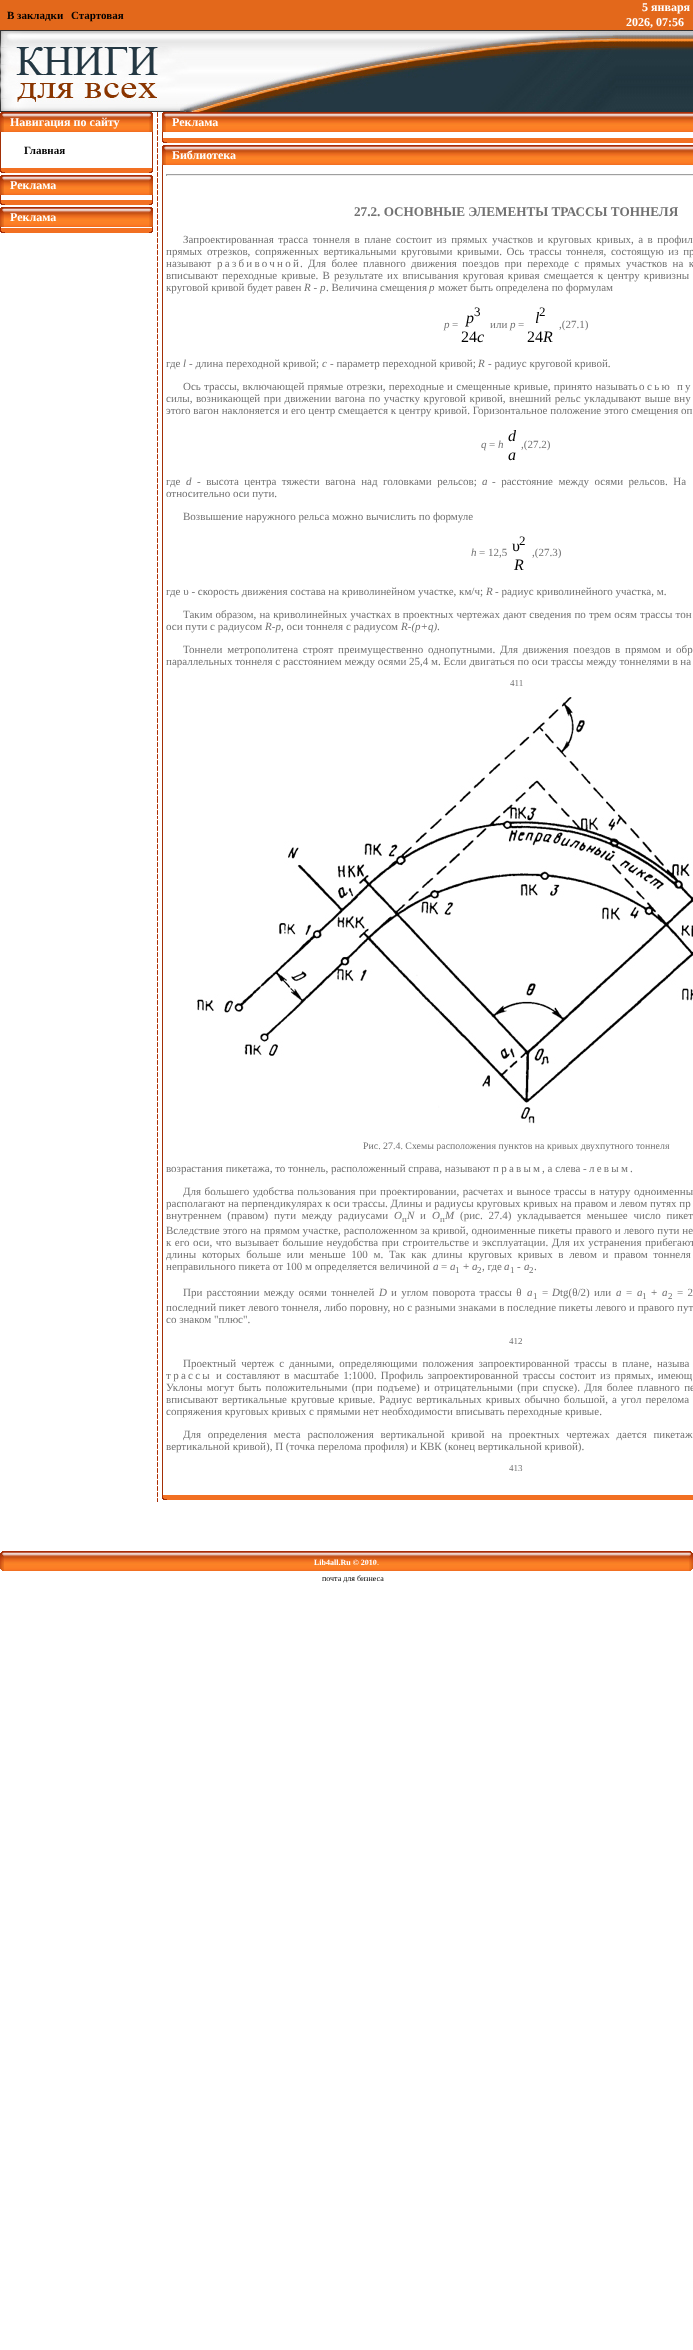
<!DOCTYPE html>
<meta charset="utf-8">
<style>body { margin: 0 } canvas { display: block }</style>
<canvas id="canvas" width="693" height="2350"></canvas>
<img id="img1" src="images/1.png" hidden>
<img id="img2" src="images/2.png" hidden>
<img id="img3" src="images/3.png" hidden>
<img id="img4" src="images/4.png" hidden>
<img id="img5" src="images/5.png" hidden>
<img id="img6" src="images/6.png" hidden>
<img id="img7" src="images/7.png" hidden>
<img id="img8" src="images/8.png" hidden>
<img id="img9" src="images/9.png" hidden>
<img id="img10" src="images/10.png" hidden>
<img id="img11" src="images/11.png" hidden>
<img id="img12" src="images/12.png" hidden>
<img id="img13" src="images/13.png" hidden>
<img id="img14" src="images/14.png" hidden>
<img id="img15" src="images/15.png" hidden>
<script>
window.onload = function () {
    const canvas = document.getElementById('canvas');
    const context = canvas.getContext('2d');
    context.miterLimit = 4;
    context.fontKerning = 'normal';

    context.fillStyle = 'rgb(255, 255, 255)';
    context.fillRect(0, 0, 693, 2350);
    context.fillStyle = 'rgb(227, 104, 27)';
    context.fillRect(0, 0, 693, 30);
    context.drawImage(document.getElementById('img1'), 0, 30, 618, 82);
    context.drawImage(document.getElementById('img2'), 618, 30, 72, 82);
    context.drawImage(document.getElementById('img3'), 690, 30, 3, 82);
    context.drawImage(document.getElementById('img4'), 0, 112, 4, 20);
    context.drawImage(document.getElementById('img5'), 4, 112, 145, 20);
    context.drawImage(document.getElementById('img6'), 149, 112, 4, 20);
    context.fillStyle = 'rgb(163, 47, 6)';
    context.fillRect(0, 132, 1, 36);
    context.fillRect(152, 132, 1, 36);
    context.drawImage(document.getElementById('img7'), 0, 168, 4, 5);
    context.fillStyle = 'rgb(242, 112, 34)';
    context.fillRect(4, 168, 145, 5);
    context.fillStyle = 'rgb(168, 44, 6)';
    context.fillRect(4, 172, 1, 1);
    context.drawImage(document.getElementById('img8'), 149, 168, 4, 5);
    context.drawImage(document.getElementById('img4'), 0, 175, 4, 20);
    context.drawImage(document.getElementById('img5'), 4, 175, 145, 20);
    context.drawImage(document.getElementById('img6'), 149, 175, 4, 20);
    context.fillStyle = 'rgb(163, 47, 6)';
    context.fillRect(0, 195, 1, 5);
    context.fillRect(152, 195, 1, 5);
    context.drawImage(document.getElementById('img7'), 0, 200, 4, 5);
    context.fillStyle = 'rgb(242, 112, 34)';
    context.fillRect(4, 200, 145, 5);
    context.fillStyle = 'rgb(168, 44, 6)';
    context.fillRect(4, 204, 1, 1);
    context.drawImage(document.getElementById('img8'), 149, 200, 4, 5);
    context.drawImage(document.getElementById('img4'), 0, 207, 4, 20);
    context.drawImage(document.getElementById('img5'), 4, 207, 145, 20);
    context.drawImage(document.getElementById('img6'), 149, 207, 4, 20);
    context.fillStyle = 'rgb(163, 47, 6)';
    context.fillRect(0, 227, 1, 1);
    context.fillRect(152, 227, 1, 1);
    context.drawImage(document.getElementById('img7'), 0, 228, 4, 5);
    context.fillStyle = 'rgb(242, 112, 34)';
    context.fillRect(4, 228, 145, 5);
    context.fillStyle = 'rgb(168, 44, 6)';
    context.fillRect(4, 232, 1, 1);
    context.drawImage(document.getElementById('img8'), 149, 228, 4, 5);
    context.drawImage(document.getElementById('img9'), 157, 112, 1, 1390);
    context.drawImage(document.getElementById('img10'), 157, 798, 1, 18);
    context.drawImage(document.getElementById('img4'), 162, 112, 4, 20);
    context.drawImage(document.getElementById('img11'), 166, 112, 527, 20);
    context.fillStyle = 'rgb(163, 47, 6)';
    context.fillRect(162, 132, 1, 6);
    context.drawImage(document.getElementById('img7'), 162, 138, 4, 5);
    context.fillStyle = 'rgb(242, 112, 34)';
    context.fillRect(166, 138, 527, 5);
    context.fillStyle = 'rgb(168, 44, 6)';
    context.fillRect(166, 142, 1, 1);
    context.drawImage(document.getElementById('img4'), 162, 145, 4, 20);
    context.drawImage(document.getElementById('img11'), 166, 145, 527, 20);
    context.fillStyle = 'rgb(163, 47, 6)';
    context.fillRect(162, 165, 1, 1330);
    context.fillStyle = 'rgb(159, 159, 159)';
    context.fillRect(166, 174, 527, 1);
    context.fillStyle = 'rgb(238, 238, 238)';
    context.fillRect(166, 175, 527, 1);
    context.fillStyle = 'rgb(159, 159, 159)';
    context.fillRect(166, 174, 1, 2);
    context.drawImage(document.getElementById('img12'), 197, 697, 496, 427);
    context.drawImage(document.getElementById('img7'), 162, 1495, 4, 5);
    context.fillStyle = 'rgb(242, 112, 34)';
    context.fillRect(166, 1495, 527, 5);
    context.fillStyle = 'rgb(168, 44, 6)';
    context.fillRect(166, 1499, 1, 1);
    context.drawImage(document.getElementById('img13'), 0, 1551, 4, 20);
    context.drawImage(document.getElementById('img14'), 4, 1551, 685, 20);
    context.drawImage(document.getElementById('img15'), 689, 1551, 4, 20);
    context.font = 'bold 11px Liberation Serif';
    context.fillStyle = 'rgb(0, 0, 0)';
    context.fillText('В закладки', 7, 19);
    context.fillText('Стартовая', 71, 19);
    context.font = 'bold 12px Liberation Serif';
    context.fillStyle = 'rgb(255, 255, 255)';
    context.fillText('5 января', 642, 11);
    context.fillText('2026, 07:56', 626, 26);
    context.fillText('Навигация по сайту', 10, 126);
    context.font = 'bold 11px Liberation Serif';
    context.fillStyle = 'rgb(0, 0, 0)';
    context.fillText('Главная', 24, 154);
    context.font = 'bold 12px Liberation Serif';
    context.fillStyle = 'rgb(255, 255, 255)';
    context.fillText('Реклама', 10, 189);
    context.fillText('Реклама', 10, 221);
    context.fillText('Реклама', 172, 126);
    context.fillText('Библиотека', 172, 159);
    context.font = 'bold 13.2px Liberation Serif';
    context.fillStyle = 'rgb(114, 114, 114)';
    context.fillText('27.2. ОСНОВНЫЕ ЭЛЕМЕНТЫ ТРАССЫ ТОННЕЛЯ', 354, 216);
    context.wordSpacing = '1.7px';
    context.font = '11px Liberation Serif';
    context.fillText('Запроектированная трасса тоннеля в плане состоит из прямых участков и круговых кривых, а в профил', 183, 243);
    context.wordSpacing = '1.9px';
    context.fillText('прямых отрезков, сопряженных вертикальными круговыми кривыми. Ось трассы тоннеля, состоящую из пр', 166, 255);
    context.wordSpacing = '0px';
    context.fillText('называют', 166, 267);
    context.letterSpacing = '2.25px';
    context.fillText('разбивочной', 217, 267);
    context.letterSpacing = '0px';
    context.wordSpacing = '2.6px';
    context.fillText('. Для более плавного движения поездов при переходе с прямых участков на к', 300, 267);
    context.wordSpacing = '1.4px';
    context.fillText('вписывают переходные кривые. В результате их вписывания круговая кривая смещается к центру кривизны', 166, 279);
    context.wordSpacing = '0px';
    context.fillText('круговой кривой будет равен', 166, 291);
    context.font = 'italic 11px Liberation Serif';
    context.fillText('R - р', 304, 291);
    context.font = '11px Liberation Serif';
    context.fillText('. Величина смещения', 326, 291);
    context.font = 'italic 11px Liberation Serif';
    context.fillText('р', 429, 291);
    context.font = '11px Liberation Serif';
    context.fillText('может быть определена по формулам', 438, 291);
    context.font = 'italic 11px Liberation Serif';
    context.fillText('p', 444, 328);
    context.font = '11px Liberation Serif';
    context.fillText('=', 452, 328);
    context.font = '13px Liberation Serif';
    context.fillStyle = 'rgb(0, 0, 0)';
    context.fillText('3', 474, 316);
    context.font = 'italic 16px Liberation Serif';
    context.fillText('p', 466, 323);
    context.font = '16px Liberation Serif';
    context.fillText('24', 461, 342);
    context.font = 'italic 16px Liberation Serif';
    context.fillText('c', 477, 342);
    context.font = '11px Liberation Serif';
    context.fillStyle = 'rgb(114, 114, 114)';
    context.fillText('или', 490, 328);
    context.font = 'italic 11px Liberation Serif';
    context.fillText('p', 510, 328);
    context.font = '11px Liberation Serif';
    context.fillText('=', 518, 328);
    context.font = 'italic 16px Liberation Serif';
    context.fillStyle = 'rgb(0, 0, 0)';
    context.fillText('l', 535, 323);
    context.font = '13px Liberation Serif';
    context.fillText('2', 539, 316);
    context.font = '16px Liberation Serif';
    context.fillText('24', 527, 342);
    context.font = 'italic 16px Liberation Serif';
    context.fillText('R', 543, 342);
    context.font = '11px Liberation Serif';
    context.fillStyle = 'rgb(114, 114, 114)';
    context.fillText(',(27.1)', 559, 328);
    context.fillText('где', 166, 367);
    context.font = 'italic 11px Liberation Serif';
    context.fillText('l', 183, 367);
    context.font = '11px Liberation Serif';
    context.fillText('- длина переходной кривой;', 189, 367);
    context.font = 'italic 11px Liberation Serif';
    context.fillText('с', 322, 367);
    context.font = '11px Liberation Serif';
    context.fillText('- параметр переходной кривой;', 330, 367);
    context.font = 'italic 11px Liberation Serif';
    context.fillText('R', 478, 367);
    context.font = '11px Liberation Serif';
    context.fillText('- радиус круговой кривой.', 488, 367);
    context.wordSpacing = '0.5px';
    context.fillText('Ось трассы, включающей прямые отрезки, переходные и смещенные кривые, принято называть', 183, 390);
    context.letterSpacing = '2.25px';
    context.wordSpacing = '0px';
    context.fillText('осью пу', 639, 390);
    context.letterSpacing = '0px';
    context.wordSpacing = '0.8px';
    context.fillText('силы, возникающей при движении вагона по участку круговой кривой, внешний рельс укладывают выше вну', 166, 402);
    context.wordSpacing = '0px';
    context.fillText('этого вагон наклоняется и его центр смещается к центру кривой. Горизонтальное положение этого смещения оп', 166, 414);
    context.font = 'italic 11px Liberation Serif';
    context.fillText('q', 481, 448);
    context.font = '11px Liberation Serif';
    context.fillText('=', 489, 448);
    context.font = 'italic 11px Liberation Serif';
    context.fillText('h', 498, 448);
    context.font = 'italic 16px Liberation Serif';
    context.fillStyle = 'rgb(0, 0, 0)';
    context.fillText('d', 508, 441);
    context.fillText('a', 508, 460);
    context.font = '11px Liberation Serif';
    context.fillStyle = 'rgb(114, 114, 114)';
    context.fillText(',(27.2)', 521, 448);
    context.fillText('где', 166, 485);
    context.font = 'italic 11px Liberation Serif';
    context.fillText('d', 186, 485);
    context.wordSpacing = '2.75px';
    context.font = '11px Liberation Serif';
    context.fillText('- высота центра тяжести вагона над головками рельсов;', 197, 485);
    context.wordSpacing = '0px';
    context.font = 'italic 11px Liberation Serif';
    context.fillText('а', 482, 485);
    context.wordSpacing = '2.75px';
    context.font = '11px Liberation Serif';
    context.fillText('- расстояние между осями рельсов. На', 492, 485);
    context.wordSpacing = '0px';
    context.fillText('относительно оси пути.', 166, 497);
    context.fillText('Возвышение наружного рельса можно вычислить по формуле', 183, 520);
    context.font = 'italic 11px Liberation Serif';
    context.fillText('h', 471, 556);
    context.font = '11px Liberation Serif';
    context.fillText('= 12,5', 479, 556);
    context.font = '13px Liberation Serif';
    context.fillStyle = 'rgb(0, 0, 0)';
    context.fillText('2', 519, 545);
    context.font = '16px Liberation Serif';
    context.fillText('υ', 512, 551);
    context.font = 'italic 16px Liberation Serif';
    context.fillText('R', 514, 570);
    context.font = '11px Liberation Serif';
    context.fillStyle = 'rgb(114, 114, 114)';
    context.fillText(',(27.3)', 532, 556);
    context.fillText('где υ - скорость движения состава на криволинейном участке, км/ч;', 166, 595);
    context.font = 'italic 11px Liberation Serif';
    context.fillText('R', 486, 595);
    context.font = '11px Liberation Serif';
    context.fillText('- радиус криволинейного участка, м.', 495, 595);
    context.wordSpacing = '0.3px';
    context.fillText('Таким образом, на криволинейных участках в проектных чертежах дают сведения по трем осям трассы тон', 183, 618);
    context.wordSpacing = '0px';
    context.fillText('оси пути с радиусом', 166, 630);
    context.font = 'italic 11px Liberation Serif';
    context.fillText('R-p', 265, 630);
    context.font = '11px Liberation Serif';
    context.fillText(', оси тоннеля с радиусом', 281, 630);
    context.font = 'italic 11px Liberation Serif';
    context.fillText('R-(p+q)', 401, 630);
    context.font = '11px Liberation Serif';
    context.fillText('.', 437, 630);
    context.wordSpacing = '2px';
    context.fillText('Тоннели метрополитена строят преимущественно однопутными. Для движения поездов в прямом и обр', 183, 653);
    context.wordSpacing = '0px';
    context.fillText('параллельных тоннеля с расстоянием между осями 25,4 м. Если двигаться по оси трассы между тоннелями в на', 166, 665);
    context.font = '9px Liberation Serif';
    context.fillText('411', 510, 686);
    context.font = '9.9px Liberation Serif';
    context.fillText('Рис. 27.4. Схемы расположения пунктов на кривых двухпутного тоннеля', 363, 1149);
    context.font = '11px Liberation Serif';
    context.fillText('возрастания пикетажа, то тоннель, расположенный справа, называют', 166, 1172);
    context.letterSpacing = '2.25px';
    context.fillText('правым', 493, 1172);
    context.letterSpacing = '0px';
    context.fillText(', а слева -', 542, 1172);
    context.letterSpacing = '2.25px';
    context.fillText('левым', 589, 1172);
    context.letterSpacing = '0px';
    context.fillText('.', 630, 1172);
    context.wordSpacing = '0.8px';
    context.fillText('Для большего удобства пользования при проектировании, расчетах и выносе трассы в натуру одноименны', 183, 1195);
    context.wordSpacing = '0px';
    context.fillText('располагают на перпендикулярах к оси трассы. Длины и радиусы круговых кривых на правом и левом путях пр', 166, 1207);
    context.wordSpacing = '3px';
    context.fillText('внутреннем (правом) пути между радиусами', 166, 1219);
    context.wordSpacing = '0px';
    context.font = 'italic 11px Liberation Serif';
    context.fillText('O', 394, 1219);
    context.fillText('N', 407, 1219);
    context.font = '11px Liberation Serif';
    context.fillText('и', 420, 1219);
    context.font = 'italic 11px Liberation Serif';
    context.fillText('О', 432, 1219);
    context.fillText('М', 445, 1219);
    context.wordSpacing = '3px';
    context.font = '11px Liberation Serif';
    context.fillText('(рис. 27.4) укладывается меньшее число пикет', 460, 1219);
    context.wordSpacing = '0px';
    context.font = '9px Liberation Serif';
    context.fillText('п', 402, 1222);
    context.fillText('п', 440, 1222);
    context.wordSpacing = '0.2px';
    context.font = '11px Liberation Serif';
    context.fillText('Вследствие этого на прямом участке, расположенном за кривой, одноименные пикеты правого и левого пути не', 166, 1234);
    context.wordSpacing = '0.75px';
    context.fillText('к его оси, что вызывает большие неудобства при строительстве и эксплуатации. Для их устранения прибегают', 166, 1246);
    context.wordSpacing = '2.9px';
    context.fillText('длины которых больше или меньше 100 м. Так как длины круговых кривых в левом и правом тоннеля', 166, 1258);
    context.wordSpacing = '0px';
    context.fillText('неправильного пикета от 100 м определяется величиной', 166, 1270);
    context.font = 'italic 11px Liberation Serif';
    context.fillText('a', 433, 1270);
    context.font = '11px Liberation Serif';
    context.fillText('=', 441, 1270);
    context.font = 'italic 11px Liberation Serif';
    context.fillText('a', 450, 1270);
    context.font = '9px Liberation Serif';
    context.fillText('1', 455, 1273);
    context.font = '11px Liberation Serif';
    context.fillText('+', 463, 1270);
    context.font = 'italic 11px Liberation Serif';
    context.fillText('a', 472, 1270);
    context.font = '9px Liberation Serif';
    context.fillText('2', 477, 1273);
    context.font = '11px Liberation Serif';
    context.fillText(', где', 482, 1270);
    context.font = 'italic 11px Liberation Serif';
    context.fillText('a', 504, 1270);
    context.font = '9px Liberation Serif';
    context.fillText('1', 510, 1273);
    context.font = '11px Liberation Serif';
    context.fillText('-', 517, 1270);
    context.font = 'italic 11px Liberation Serif';
    context.fillText('а', 524, 1270);
    context.font = '9px Liberation Serif';
    context.fillText('2', 529, 1273);
    context.font = '11px Liberation Serif';
    context.fillText('.', 534, 1270);
    context.wordSpacing = '1.5px';
    context.fillText('При расстоянии между осями тоннелей', 183, 1296);
    context.wordSpacing = '0px';
    context.font = 'italic 11px Liberation Serif';
    context.fillText('D', 379, 1296);
    context.wordSpacing = '1.5px';
    context.font = '11px Liberation Serif';
    context.fillText('и углом поворота трассы θ', 391, 1296);
    context.wordSpacing = '0px';
    context.font = 'italic 11px Liberation Serif';
    context.fillText('a', 527, 1296);
    context.font = '9px Liberation Serif';
    context.fillText('1', 533, 1299);
    context.font = '11px Liberation Serif';
    context.fillText('=', 542, 1296);
    context.font = 'italic 11px Liberation Serif';
    context.fillText('D', 552, 1296);
    context.wordSpacing = '1.5px';
    context.font = '11px Liberation Serif';
    context.fillText('tg(θ/2) или', 560, 1296);
    context.wordSpacing = '0px';
    context.font = 'italic 11px Liberation Serif';
    context.fillText('a', 616, 1296);
    context.font = '11px Liberation Serif';
    context.fillText('=', 626, 1296);
    context.font = 'italic 11px Liberation Serif';
    context.fillText('a', 637, 1296);
    context.font = '9px Liberation Serif';
    context.fillText('1', 642, 1299);
    context.font = '11px Liberation Serif';
    context.fillText('+', 651, 1296);
    context.font = 'italic 11px Liberation Serif';
    context.fillText('a', 662, 1296);
    context.font = '9px Liberation Serif';
    context.fillText('2', 668, 1299);
    context.wordSpacing = '1.5px';
    context.font = '11px Liberation Serif';
    context.fillText('= 2', 677, 1296);
    context.wordSpacing = '0px';
    context.fillText('последний пикет левого тоннеля, либо поровну, но с разными знаками в последние пикеты левого и правого пут', 166, 1311);
    context.fillText('со знаком "плюс".', 166, 1323);
    context.font = '9px Liberation Serif';
    context.fillText('412', 509, 1344);
    context.wordSpacing = '2.25px';
    context.font = '11px Liberation Serif';
    context.fillText('Проектный чертеж с данными, определяющими положения запроектированной трассы в плане, называ', 183, 1367);
    context.letterSpacing = '2.25px';
    context.wordSpacing = '0px';
    context.fillText('трассы', 166, 1379);
    context.letterSpacing = '0px';
    context.wordSpacing = '1.5px';
    context.fillText('и составляют в масштабе 1:1000. Профиль запроектированной трассы состоит из прямых, имеющ', 216, 1379);
    context.wordSpacing = '1.6px';
    context.fillText('Уклоны могут быть положительными (при подъеме) и отрицательными (при спуске). Для более плавного пе', 166, 1391);
    context.wordSpacing = '1.25px';
    context.fillText('вписывают вертикальные круговые кривые. Радиус вертикальных кривых обычно большой, а угол перелома', 166, 1403);
    context.wordSpacing = '0px';
    context.fillText('сопряжения круговых кривых с прямыми нет необходимости вписывать переходные кривые.', 166, 1415);
    context.wordSpacing = '4px';
    context.fillText('Для определения места расположения вертикальной кривой на проектных чертежах дается пикетаж', 183, 1438);
    context.wordSpacing = '0px';
    context.fillText('вертикальной кривой), П (точка перелома профиля) и КВК (конец вертикальной кривой).', 166, 1450);
    context.font = '9px Liberation Serif';
    context.fillText('413', 509, 1471);
    context.font = 'bold 8px Liberation Serif';
    context.fillStyle = 'rgb(255, 255, 255)';
    context.fillText('Lib4all.Ru © 2010', 314, 1565);
    context.font = '8px Liberation Serif';
    context.fillText('.', 377, 1565);
    context.fillStyle = 'rgb(0, 0, 0)';
    context.fillText('почта для бизнеса', 322, 1581);
};
</script>
